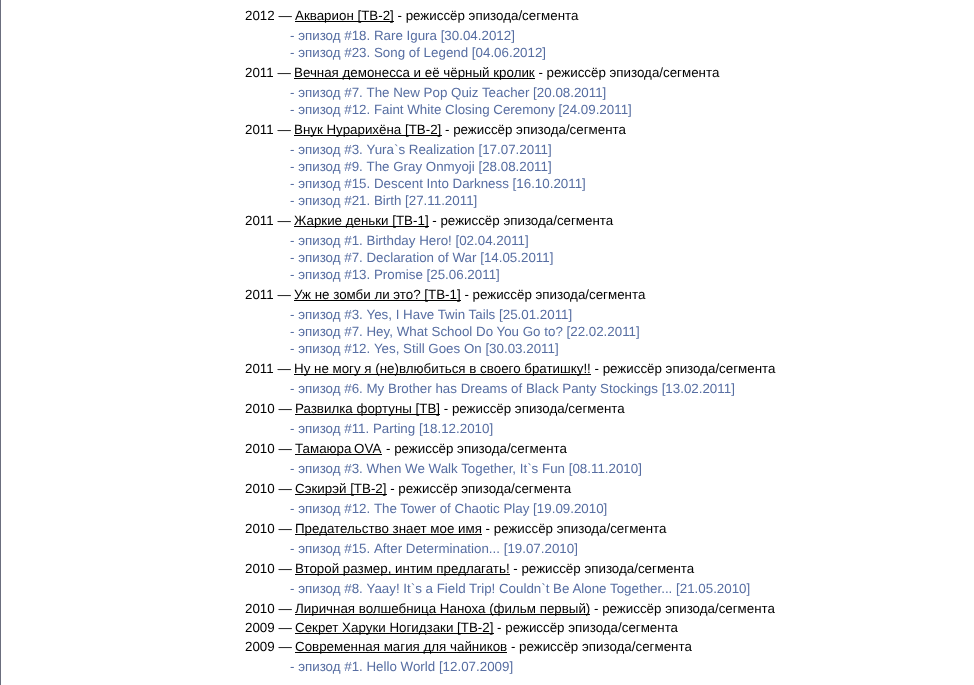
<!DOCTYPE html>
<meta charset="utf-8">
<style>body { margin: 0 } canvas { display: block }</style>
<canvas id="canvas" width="974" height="685"></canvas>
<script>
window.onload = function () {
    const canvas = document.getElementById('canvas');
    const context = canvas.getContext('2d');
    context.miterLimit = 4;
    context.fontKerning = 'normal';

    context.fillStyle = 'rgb(255, 255, 255)';
    context.fillRect(0, 0, 974, 685);
    context.fillStyle = 'rgb(107, 110, 126)';
    context.fillRect(0, 0, 1, 685);
    context.fillStyle = 'rgb(0, 0, 0)';
    context.fillRect(295, 21, 99, 1);
    context.fillRect(294, 78, 241, 1);
    context.fillRect(294, 135, 148, 1);
    context.fillRect(294, 226, 135, 1);
    context.fillRect(294, 300, 167, 1);
    context.fillRect(294, 374, 297, 1);
    context.fillRect(295, 414, 145, 1);
    context.fillRect(295, 454, 87, 1);
    context.fillRect(295, 494, 92, 1);
    context.fillRect(295, 534, 187, 1);
    context.fillRect(295, 574, 215, 1);
    context.fillRect(295, 614, 295, 1);
    context.fillRect(295, 633, 199, 1);
    context.fillRect(295, 652, 212, 1);
    context.font = '13.35px Liberation Sans';
    context.fillText('2012 —', 245, 20);
    context.fillText('Акварион [ТВ-2] - режиссёр эпизода/сегмента', 295, 20);
    context.fillStyle = 'rgb(87, 110, 162)';
    context.fillText('- эпизод #18. Rare Igura [30.04.2012]', 290, 40);
    context.fillText('- эпизод #23. Song of Legend [04.06.2012]', 290, 57);
    context.fillStyle = 'rgb(0, 0, 0)';
    context.fillText('2011 —', 245, 77);
    context.fillText('Вечная демонесса и её чёрный кролик - режиссёр эпизода/сегмента', 294, 77);
    context.fillStyle = 'rgb(87, 110, 162)';
    context.fillText('- эпизод #7. The New Pop Quiz Teacher [20.08.2011]', 290, 97);
    context.fillText('- эпизод #12. Faint White Closing Ceremony [24.09.2011]', 290, 114);
    context.fillStyle = 'rgb(0, 0, 0)';
    context.fillText('2011 —', 245, 134);
    context.fillText('Внук Нурарихёна [ТВ-2] - режиссёр эпизода/сегмента', 294, 134);
    context.fillStyle = 'rgb(87, 110, 162)';
    context.fillText('- эпизод #3. Yura`s Realization [17.07.2011]', 290, 154);
    context.fillText('- эпизод #9. The Gray Onmyoji [28.08.2011]', 290, 171);
    context.fillText('- эпизод #15. Descent Into Darkness [16.10.2011]', 290, 188);
    context.fillText('- эпизод #21. Birth [27.11.2011]', 290, 205);
    context.fillStyle = 'rgb(0, 0, 0)';
    context.fillText('2011 —', 245, 225);
    context.fillText('Жаркие деньки [ТВ-1] - режиссёр эпизода/сегмента', 294, 225);
    context.fillStyle = 'rgb(87, 110, 162)';
    context.fillText('- эпизод #1. Birthday Hero! [02.04.2011]', 290, 245);
    context.fillText('- эпизод #7. Declaration of War [14.05.2011]', 290, 262);
    context.fillText('- эпизод #13. Promise [25.06.2011]', 290, 279);
    context.fillStyle = 'rgb(0, 0, 0)';
    context.fillText('2011 —', 245, 299);
    context.fillText('Уж не зомби ли это? [ТВ-1] - режиссёр эпизода/сегмента', 294, 299);
    context.fillStyle = 'rgb(87, 110, 162)';
    context.fillText('- эпизод #3. Yes, I Have Twin Tails [25.01.2011]', 290, 319);
    context.fillText('- эпизод #7. Hey, What School Do You Go to? [22.02.2011]', 290, 336);
    context.fillText('- эпизод #12. Yes, Still Goes On [30.03.2011]', 290, 353);
    context.fillStyle = 'rgb(0, 0, 0)';
    context.fillText('2011 —', 245, 373);
    context.fillText('Ну не могу я (не)влюбиться в своего братишку!! - режиссёр эпизода/сегмента', 294, 373);
    context.fillStyle = 'rgb(87, 110, 162)';
    context.fillText('- эпизод #6. My Brother has Dreams of Black Panty Stockings [13.02.2011]', 290, 393);
    context.fillStyle = 'rgb(0, 0, 0)';
    context.fillText('2010 —', 245, 413);
    context.fillText('Развилка фортуны [ТВ] - режиссёр эпизода/сегмента', 295, 413);
    context.fillStyle = 'rgb(87, 110, 162)';
    context.fillText('- эпизод #11. Parting [18.12.2010]', 290, 433);
    context.fillStyle = 'rgb(0, 0, 0)';
    context.fillText('2010 —', 245, 453);
    context.wordSpacing = '-1px';
    context.fillText('Тамаюра OVA', 295, 453);
    context.wordSpacing = '0px';
    context.fillText('- режиссёр эпизода/сегмента', 386, 453);
    context.fillStyle = 'rgb(87, 110, 162)';
    context.fillText('- эпизод #3. When We Walk Together, It`s Fun [08.11.2010]', 290, 473);
    context.fillStyle = 'rgb(0, 0, 0)';
    context.fillText('2010 —', 245, 493);
    context.fillText('Сэкирэй [ТВ-2] - режиссёр эпизода/сегмента', 295, 493);
    context.fillStyle = 'rgb(87, 110, 162)';
    context.fillText('- эпизод #12. The Tower of Chaotic Play [19.09.2010]', 290, 513);
    context.fillStyle = 'rgb(0, 0, 0)';
    context.fillText('2010 —', 245, 533);
    context.fillText('Предательство знает мое имя - режиссёр эпизода/сегмента', 295, 533);
    context.fillStyle = 'rgb(87, 110, 162)';
    context.fillText('- эпизод #15. After Determination... [19.07.2010]', 290, 553);
    context.fillStyle = 'rgb(0, 0, 0)';
    context.fillText('2010 —', 245, 573);
    context.fillText('Второй размер, интим предлагать! - режиссёр эпизода/сегмента', 295, 573);
    context.fillStyle = 'rgb(87, 110, 162)';
    context.fillText('- эпизод #8. Yaay! It`s a Field Trip! Couldn`t Be Alone Together... [21.05.2010]', 290, 593);
    context.fillStyle = 'rgb(0, 0, 0)';
    context.fillText('2010 —', 245, 613);
    context.fillText('Лиричная волшебница Наноха (фильм первый) - режиссёр эпизода/сегмента', 295, 613);
    context.fillText('2009 —', 245, 632);
    context.fillText('Секрет Харуки Ногидзаки [ТВ-2] - режиссёр эпизода/сегмента', 295, 632);
    context.fillText('2009 —', 245, 651);
    context.fillText('Современная магия для чайников - режиссёр эпизода/сегмента', 295, 651);
    context.fillStyle = 'rgb(87, 110, 162)';
    context.fillText('- эпизод #1. Hello World [12.07.2009]', 290, 671);
};
</script>
